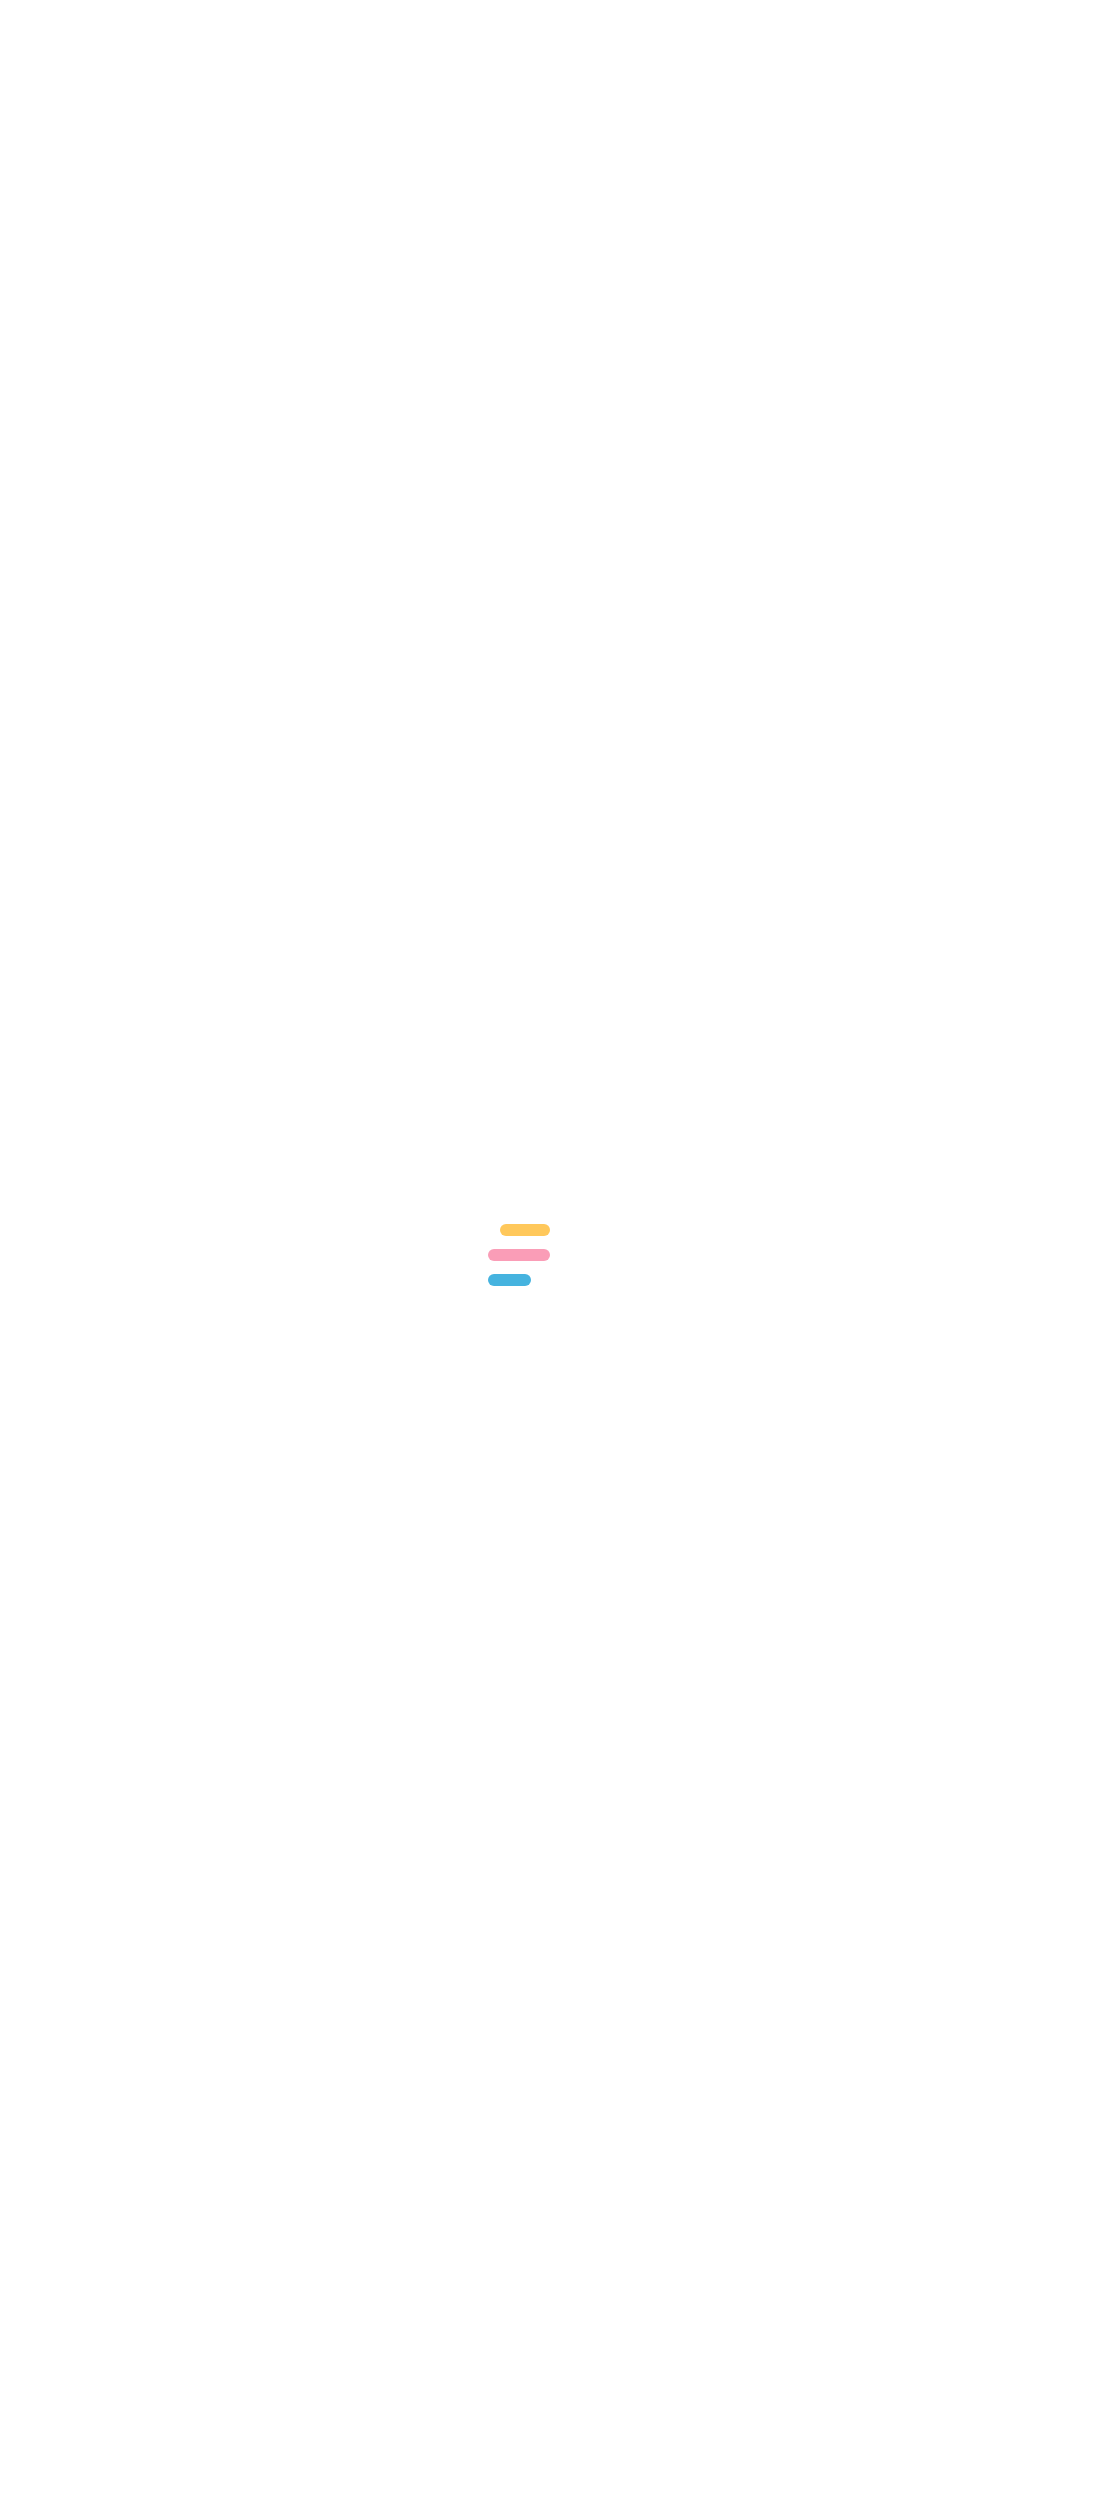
<!DOCTYPE html>
<meta charset="utf-8">
<style>body { margin: 0 } canvas { display: block }</style>
<canvas id="canvas" width="1099" height="2510"></canvas>
<script>
window.onload = function () {
    const canvas = document.getElementById('canvas');
    const context = canvas.getContext('2d');
    context.miterLimit = 4;
    context.fontKerning = 'normal';

    context.fillStyle = 'rgb(255, 255, 255)';
    context.fillRect(0, 0, 1099, 2510);
    context.fillStyle = 'rgb(250, 157, 183)';
    context.beginPath();
    context.roundRect(488, 1249, 62, 12, 6);
    context.fill();
    context.fillStyle = 'rgb(255, 200, 91)';
    context.beginPath();
    context.roundRect(500, 1224, 50, 12, 6);
    context.fill();
    context.fillStyle = 'rgb(69, 179, 223)';
    context.beginPath();
    context.roundRect(488, 1274, 43, 12, 6);
    context.fill();
};
</script>
